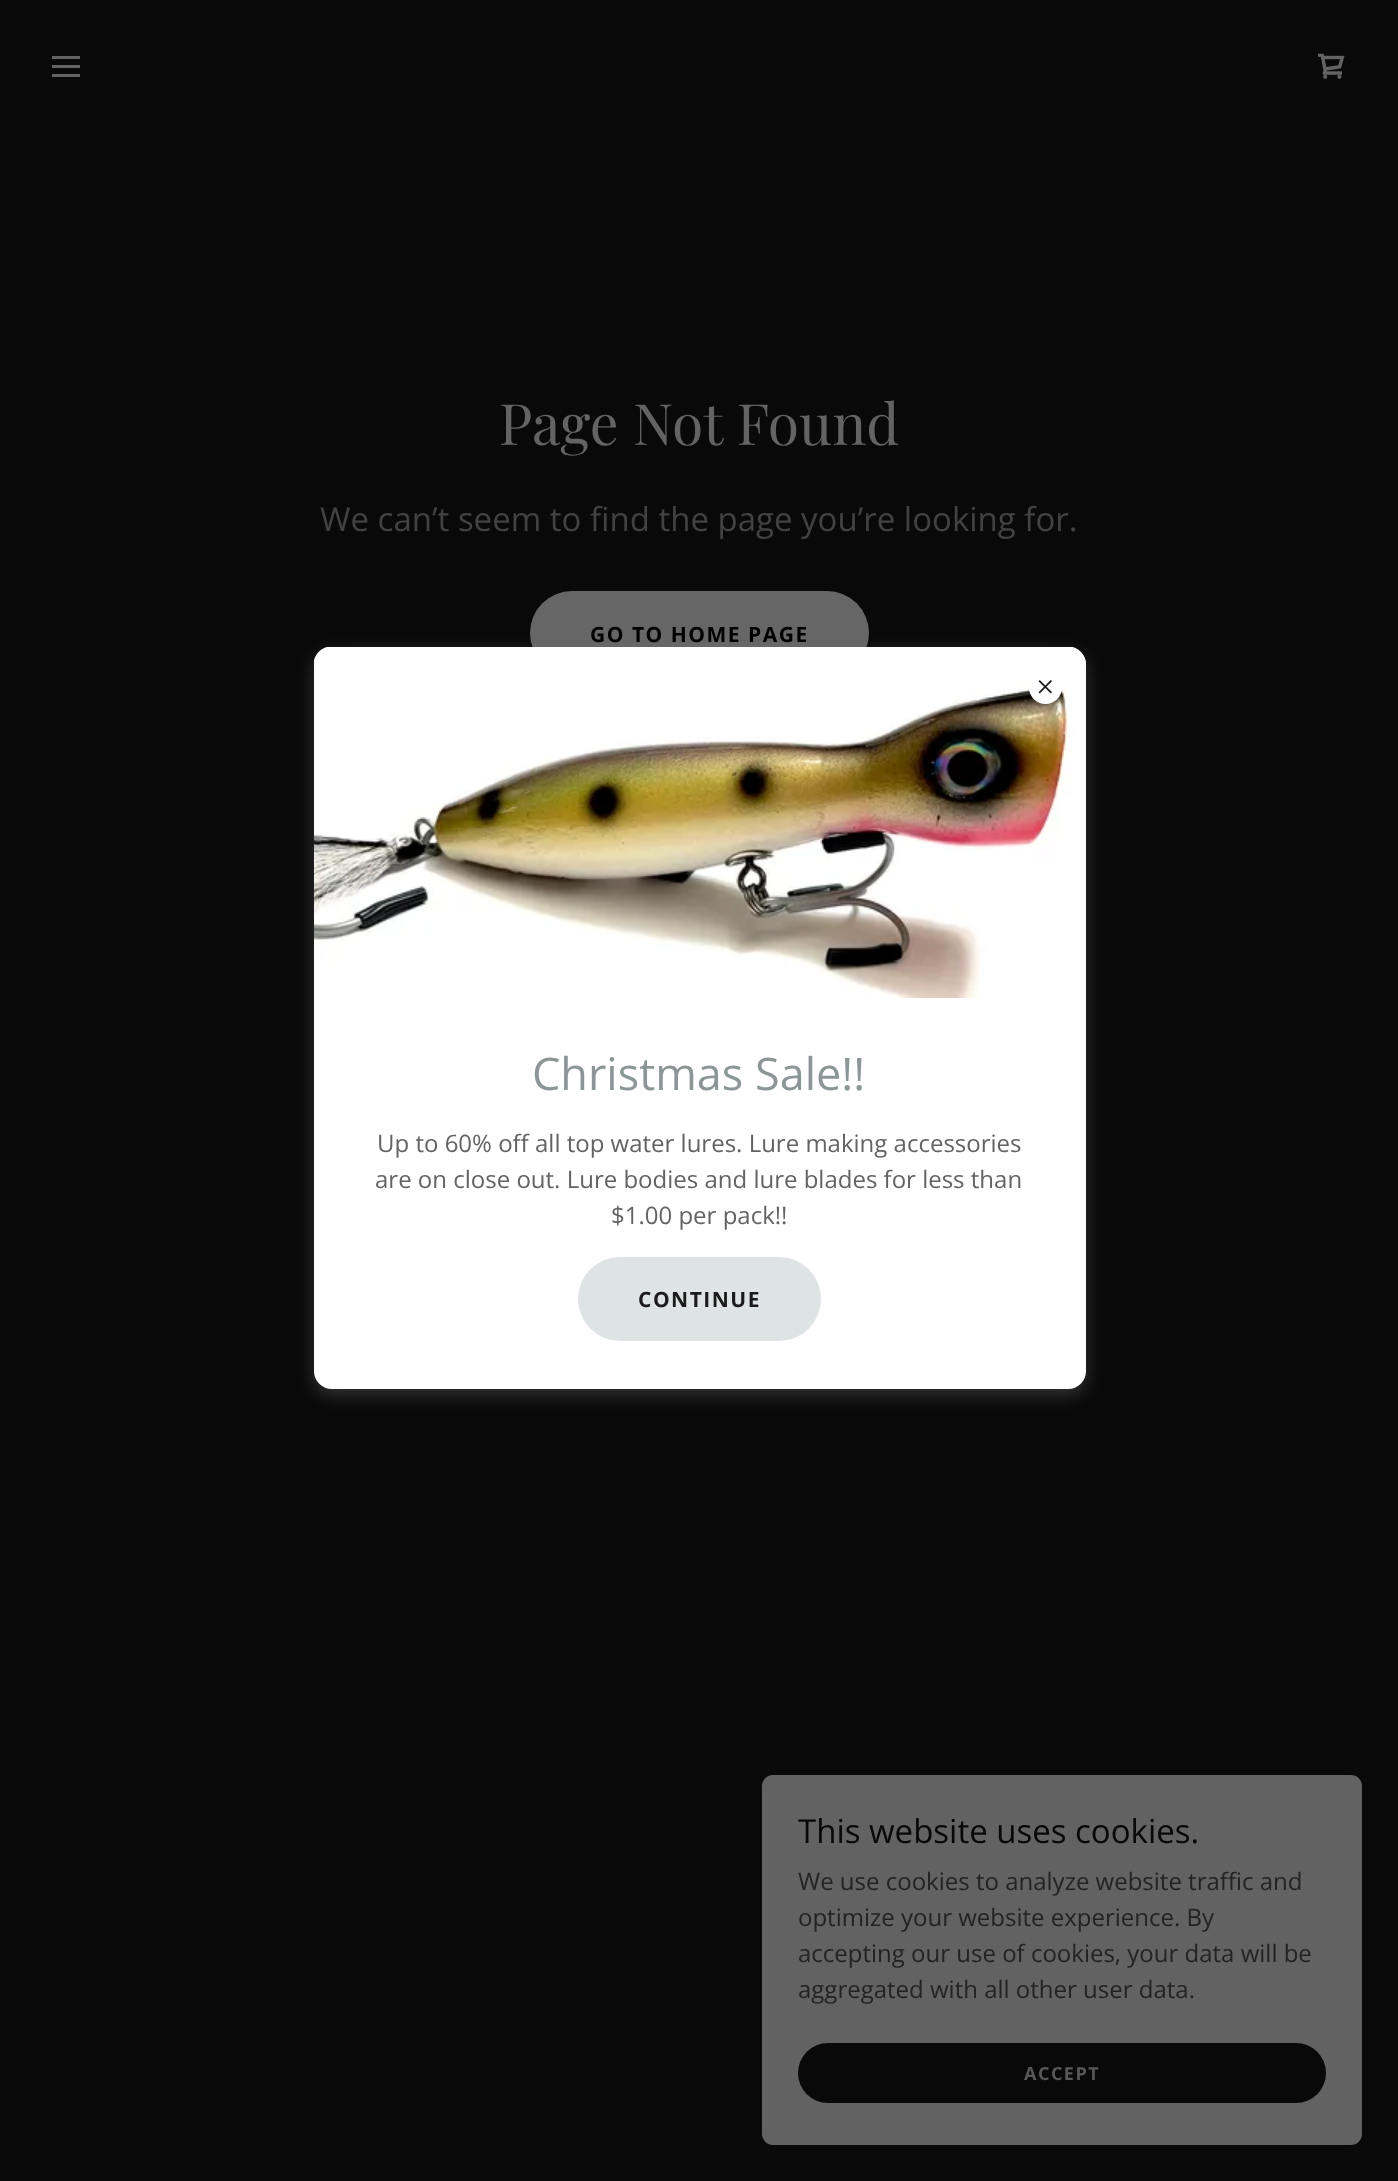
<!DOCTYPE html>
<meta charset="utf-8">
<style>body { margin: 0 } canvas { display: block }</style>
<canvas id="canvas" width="1398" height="2181"></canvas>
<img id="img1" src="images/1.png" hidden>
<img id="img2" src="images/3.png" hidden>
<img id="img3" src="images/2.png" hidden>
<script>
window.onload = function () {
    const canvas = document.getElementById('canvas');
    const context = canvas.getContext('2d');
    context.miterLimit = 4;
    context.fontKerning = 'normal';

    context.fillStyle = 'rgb(9, 9, 9)';
    context.fillRect(0, 0, 1398, 2181);
    context.fillStyle = 'rgb(99, 99, 99)';
    context.fillRect(52, 56, 28, 3);
    context.fillRect(52, 65, 28, 3);
    context.fillRect(52, 74, 28, 3);
    context.drawImage(document.getElementById('img1'), 1318, 53, 27, 26);
    context.fillStyle = 'rgb(102, 102, 102)';
    context.beginPath();
    context.roundRect(530, 591, 339, 84, 42);
    context.fill();
    context.fillStyle = 'rgba(117, 117, 117, 0.4)';
    context.filter = 'blur(9px)';
    context.beginPath();
    context.roundRect(314, 653, 772, 742, 18);
    context.fill();
    context.filter = 'none';
    context.fillStyle = 'rgb(255, 255, 255)';
    context.beginPath();
    context.roundRect(314, 647, 772, 742, 18);
    context.fill();
    context.drawImage(document.getElementById('img2'), 314, 647, 772, 351);
    context.beginPath();
    context.arc(1045.5, 687.5, 16.5, 0, 2 * Math.PI);
    context.fill();
    context.drawImage(document.getElementById('img3'), 1038, 680, 14, 14);
    context.fillStyle = 'rgb(222, 227, 227)';
    context.beginPath();
    context.roundRect(578, 1257, 243, 84, 42);
    context.fill();
    context.fillStyle = 'rgb(98, 98, 98)';
    context.beginPath();
    context.roundRect(762, 1775, 600, 370, 11);
    context.fill();
    context.fillStyle = 'rgb(9, 9, 9)';
    context.beginPath();
    context.roundRect(798, 2043, 528, 60, 30);
    context.fill();
    context.font = '57px Playfair Display';
    context.fillStyle = 'rgb(99, 99, 99)';
    context.fillText('Page Not Found', 499, 445);
    context.font = '33px Open Sans';
    context.fillStyle = 'rgb(66, 66, 66)';
    context.fillText('We can’t seem to find the page you’re looking for.', 320, 531);
    context.letterSpacing = '1.5px';
    context.font = 'bold 21px Open Sans';
    context.fillStyle = 'rgb(0, 0, 0)';
    context.fillText('GO TO HOME PAGE', 590, 642);
    context.letterSpacing = '0px';
    context.font = '45px Open Sans';
    context.fillStyle = 'rgb(140, 150, 150)';
    context.fillText('Christmas Sale!!', 532, 1090);
    context.font = '24px Open Sans';
    context.fillStyle = 'rgb(99, 99, 99)';
    context.fillText('Up to 60% off all top water lures. Lure making accessories', 377, 1152);
    context.fillText('are on close out. Lure bodies and lure blades for less than', 375, 1188);
    context.fillText('$1.00 per pack!!', 611, 1224);
    context.letterSpacing = '1.5px';
    context.font = 'bold 21px Open Sans';
    context.fillStyle = 'rgb(27, 27, 27)';
    context.fillText('CONTINUE', 638, 1307);
    context.letterSpacing = '0px';
    context.font = '33px Open Sans';
    context.fillStyle = 'rgb(8, 8, 8)';
    context.fillText('This website uses cookies.', 798, 1843);
    context.font = '24px Open Sans';
    context.fillStyle = 'rgb(34, 35, 35)';
    context.fillText('We use cookies to analyze website traffic and', 798, 1890);
    context.fillText('optimize your website experience. By', 798, 1926);
    context.fillText('accepting our use of cookies, your data will be', 798, 1962);
    context.fillText('aggregated with all other user data.', 798, 1998);
    context.letterSpacing = '1.5px';
    context.font = 'bold 18px Open Sans';
    context.fillStyle = 'rgb(88, 88, 88)';
    context.fillText('ACCEPT', 1024, 2080);
};
</script>
